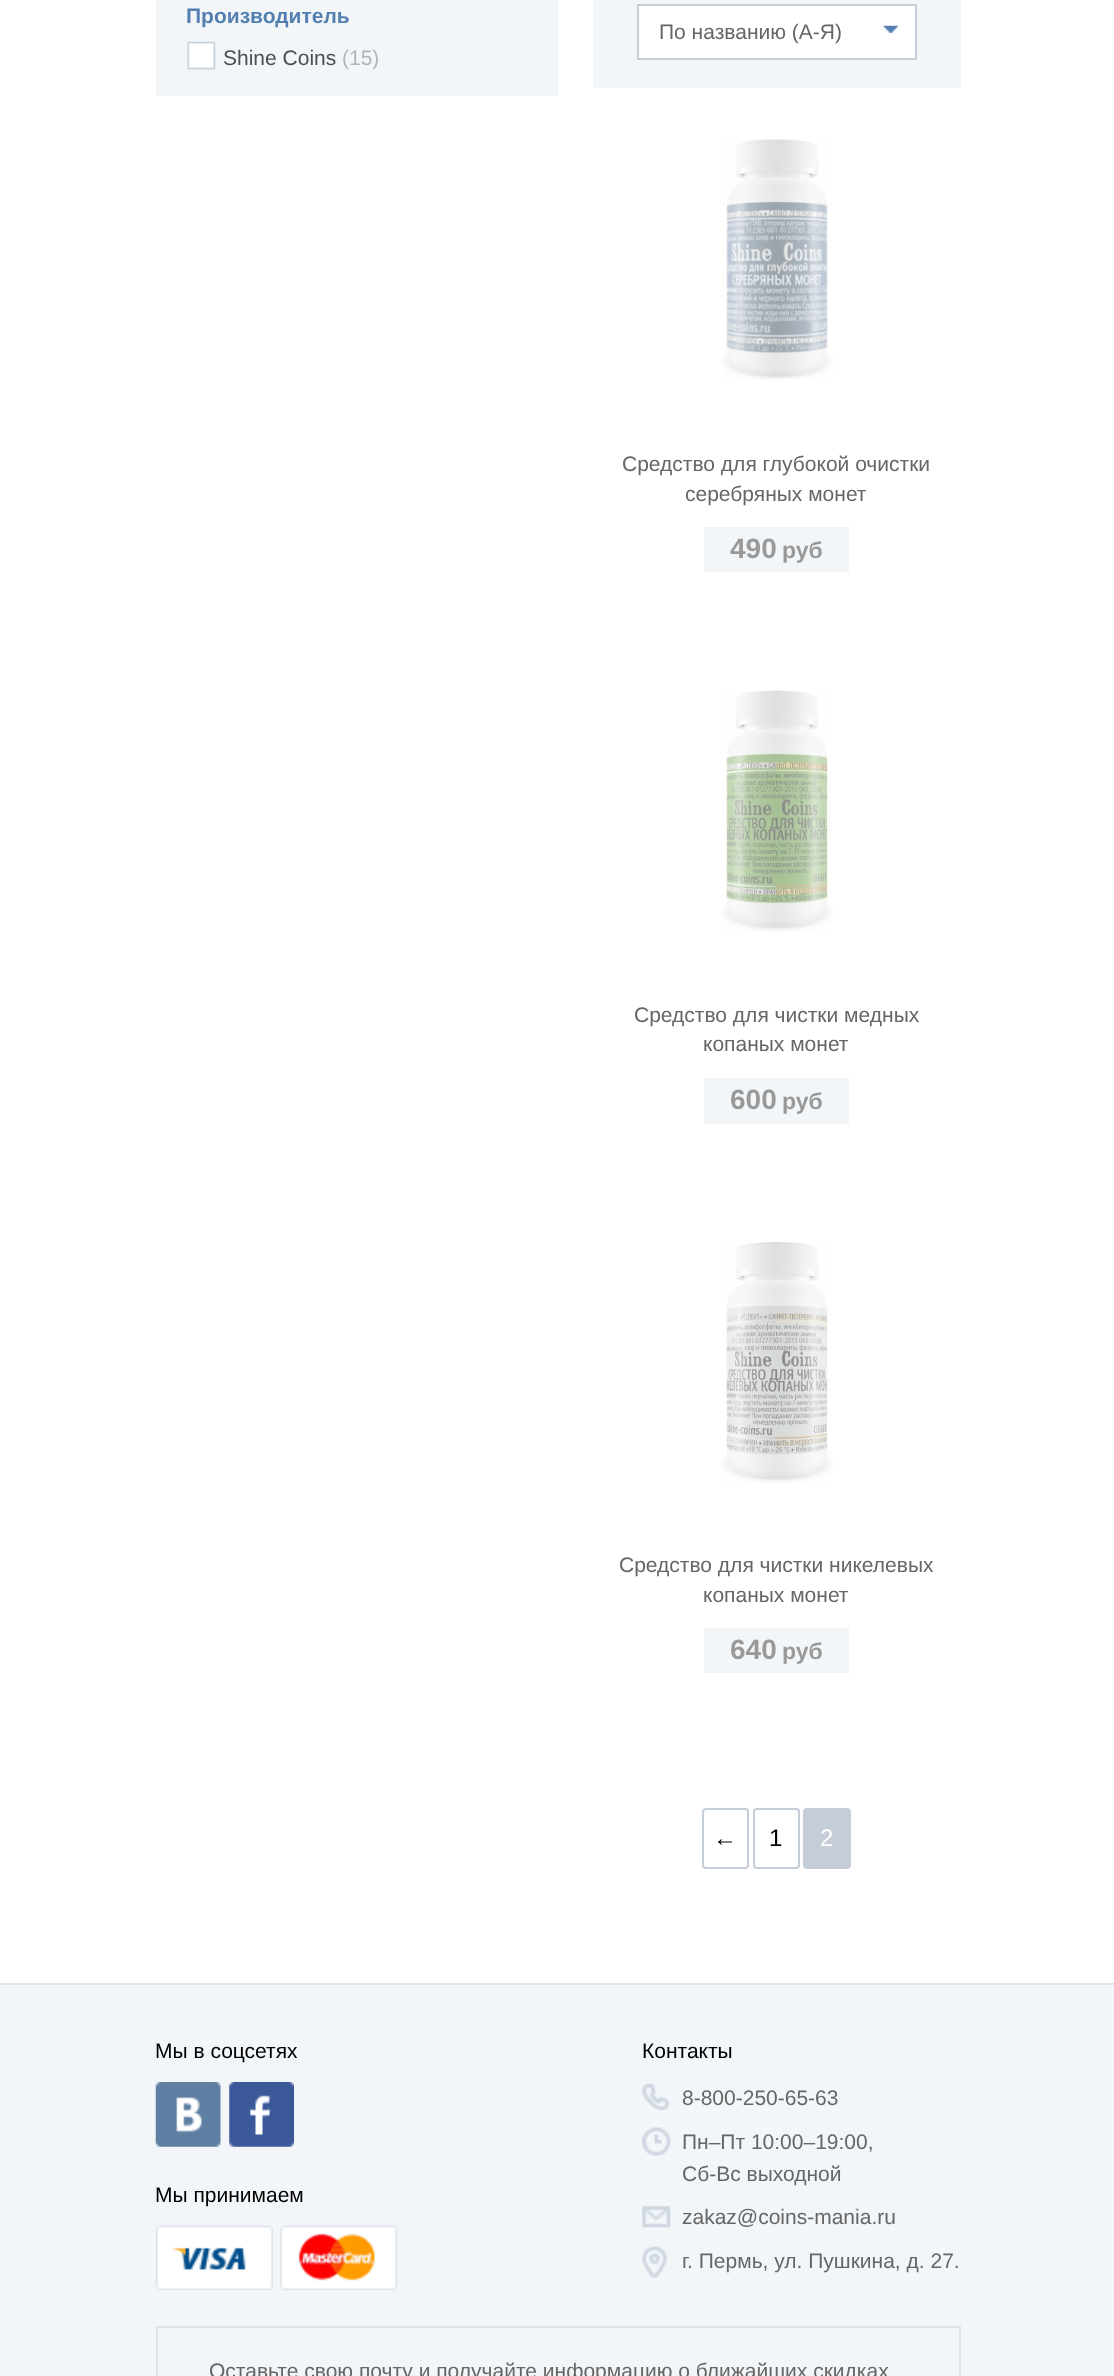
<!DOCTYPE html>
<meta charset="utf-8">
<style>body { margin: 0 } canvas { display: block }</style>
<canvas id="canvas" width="1114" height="2376"></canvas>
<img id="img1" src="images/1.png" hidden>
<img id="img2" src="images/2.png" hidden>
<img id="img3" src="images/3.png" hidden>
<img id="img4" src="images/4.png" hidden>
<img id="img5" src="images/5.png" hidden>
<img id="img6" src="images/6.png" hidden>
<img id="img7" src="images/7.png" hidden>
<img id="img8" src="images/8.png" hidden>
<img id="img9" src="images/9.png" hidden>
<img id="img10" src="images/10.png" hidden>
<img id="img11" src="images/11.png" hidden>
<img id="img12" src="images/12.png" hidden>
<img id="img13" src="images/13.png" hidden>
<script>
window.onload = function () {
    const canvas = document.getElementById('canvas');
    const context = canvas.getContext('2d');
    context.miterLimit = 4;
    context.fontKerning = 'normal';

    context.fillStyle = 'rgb(255, 255, 255)';
    context.fillRect(0, 0, 1114, 2376);
    context.fillStyle = 'rgb(242, 246, 249)';
    context.fillRect(156, 0, 402, 96);
    context.drawImage(document.getElementById('img1'), 187, 41, 29, 29);
    context.fillRect(593, 0, 368, 88);
    context.fillStyle = 'rgb(255, 255, 255)';
    context.beginPath();
    context.rect(638, 5, 278, 54);
    context.fill();
    context.strokeStyle = 'rgb(197, 205, 216)';
    context.lineWidth = 2;
    context.stroke();
    context.drawImage(document.getElementById('img2'), 883, 25, 15, 8);
    context.drawImage(document.getElementById('img3'), 722, 139, 111, 241);
    context.fillStyle = 'rgb(242, 246, 249)';
    context.fillRect(704, 527, 145, 45);
    context.drawImage(document.getElementById('img4'), 721, 690, 112, 242);
    context.fillRect(704, 1078, 145, 46);
    context.drawImage(document.getElementById('img5'), 721, 1241, 112, 242);
    context.fillRect(704, 1628, 145, 45);
    context.beginPath();
    context.roundRect(703, 1809, 45, 59, 3);
    context.stroke();
    context.beginPath();
    context.roundRect(754, 1809, 45, 59, 3);
    context.stroke();
    context.fillStyle = 'rgb(197, 205, 216)';
    context.beginPath();
    context.roundRect(804, 1809, 46, 59, 3);
    context.fill();
    context.stroke();
    context.fillStyle = 'rgb(242, 246, 249)';
    context.fillRect(0, 1985, 1114, 391);
    context.fillStyle = 'rgb(223, 228, 235)';
    context.fillRect(0, 1983, 1114, 2);
    context.drawImage(document.getElementById('img6'), 155, 2082, 66, 65);
    context.drawImage(document.getElementById('img7'), 229, 2082, 65, 65);
    context.drawImage(document.getElementById('img8'), 155, 2225, 118, 66);
    context.drawImage(document.getElementById('img9'), 280, 2225, 118, 66);
    context.drawImage(document.getElementById('img10'), 642, 2083, 28, 27);
    context.drawImage(document.getElementById('img11'), 642, 2127, 29, 29);
    context.drawImage(document.getElementById('img12'), 642, 2206, 29, 22);
    context.drawImage(document.getElementById('img13'), 642, 2246, 26, 32);
    context.strokeStyle = 'rgb(223, 228, 235)';
    context.strokeRect(157, 2327, 803, 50);
    context.font = 'bold 21px Liberation Sans';
    context.fillStyle = 'rgb(83, 128, 176)';
    context.fillText('Производитель', 186, 23);
    context.font = '21px Liberation Sans';
    context.fillStyle = 'rgb(71, 80, 87)';
    context.fillText('Shine Coins', 223, 65);
    context.fillStyle = 'rgb(175, 182, 189)';
    context.fillText('(15)', 342, 65);
    context.fillStyle = 'rgb(102, 102, 102)';
    context.fillText('По названию (А-Я)', 659, 39);
    context.fillText('Средство для глубокой очистки', 622, 471);
    context.fillText('серебряных монет', 685, 501);
    context.font = 'bold 28px Liberation Sans';
    context.fillStyle = 'rgb(153, 153, 153)';
    context.fillText('490', 730, 558);
    context.font = 'bold 23px Liberation Sans';
    context.fillText('руб', 782, 558);
    context.font = '21px Liberation Sans';
    context.fillStyle = 'rgb(102, 102, 102)';
    context.fillText('Средство для чистки медных', 634, 1022);
    context.fillText('копаных монет', 703, 1051);
    context.font = 'bold 28px Liberation Sans';
    context.fillStyle = 'rgb(153, 153, 153)';
    context.fillText('600', 730, 1109);
    context.font = 'bold 23px Liberation Sans';
    context.fillText('руб', 782, 1109);
    context.font = '21px Liberation Sans';
    context.fillStyle = 'rgb(102, 102, 102)';
    context.fillText('Средство для чистки никелевых', 619, 1572);
    context.fillText('копаных монет', 703, 1602);
    context.font = 'bold 28px Liberation Sans';
    context.fillStyle = 'rgb(153, 153, 153)';
    context.fillText('640', 730, 1659);
    context.font = 'bold 23px Liberation Sans';
    context.fillText('руб', 782, 1659);
    context.font = '24px Liberation Sans';
    context.fillStyle = 'rgb(0, 0, 0)';
    context.fillText('←', 713, 1846);
    context.fillText('1', 769, 1846);
    context.fillStyle = 'rgb(255, 255, 255)';
    context.fillText('2', 820, 1846);
    context.font = '21px Liberation Sans';
    context.fillStyle = 'rgb(0, 0, 0)';
    context.fillText('Мы в соцсетях', 155, 2058);
    context.fillText('Мы принимаем', 155, 2202);
    context.fillText('Контакты', 642, 2058);
    context.fillStyle = 'rgb(102, 102, 102)';
    context.fillText('8-800-250-65-63', 682, 2105);
    context.fillText('Пн–Пт 10:00–19:00,', 682, 2149);
    context.fillText('Сб-Вс выходной', 682, 2181);
    context.fillText('zakaz@coins-mania.ru', 682, 2224);
    context.fillText('г. Пермь, ул. Пушкина, д. 27.', 682, 2268);
    context.fillText('Оставьте свою почту и получайте информацию о ближайших скидках', 209, 2378);
};
</script>
